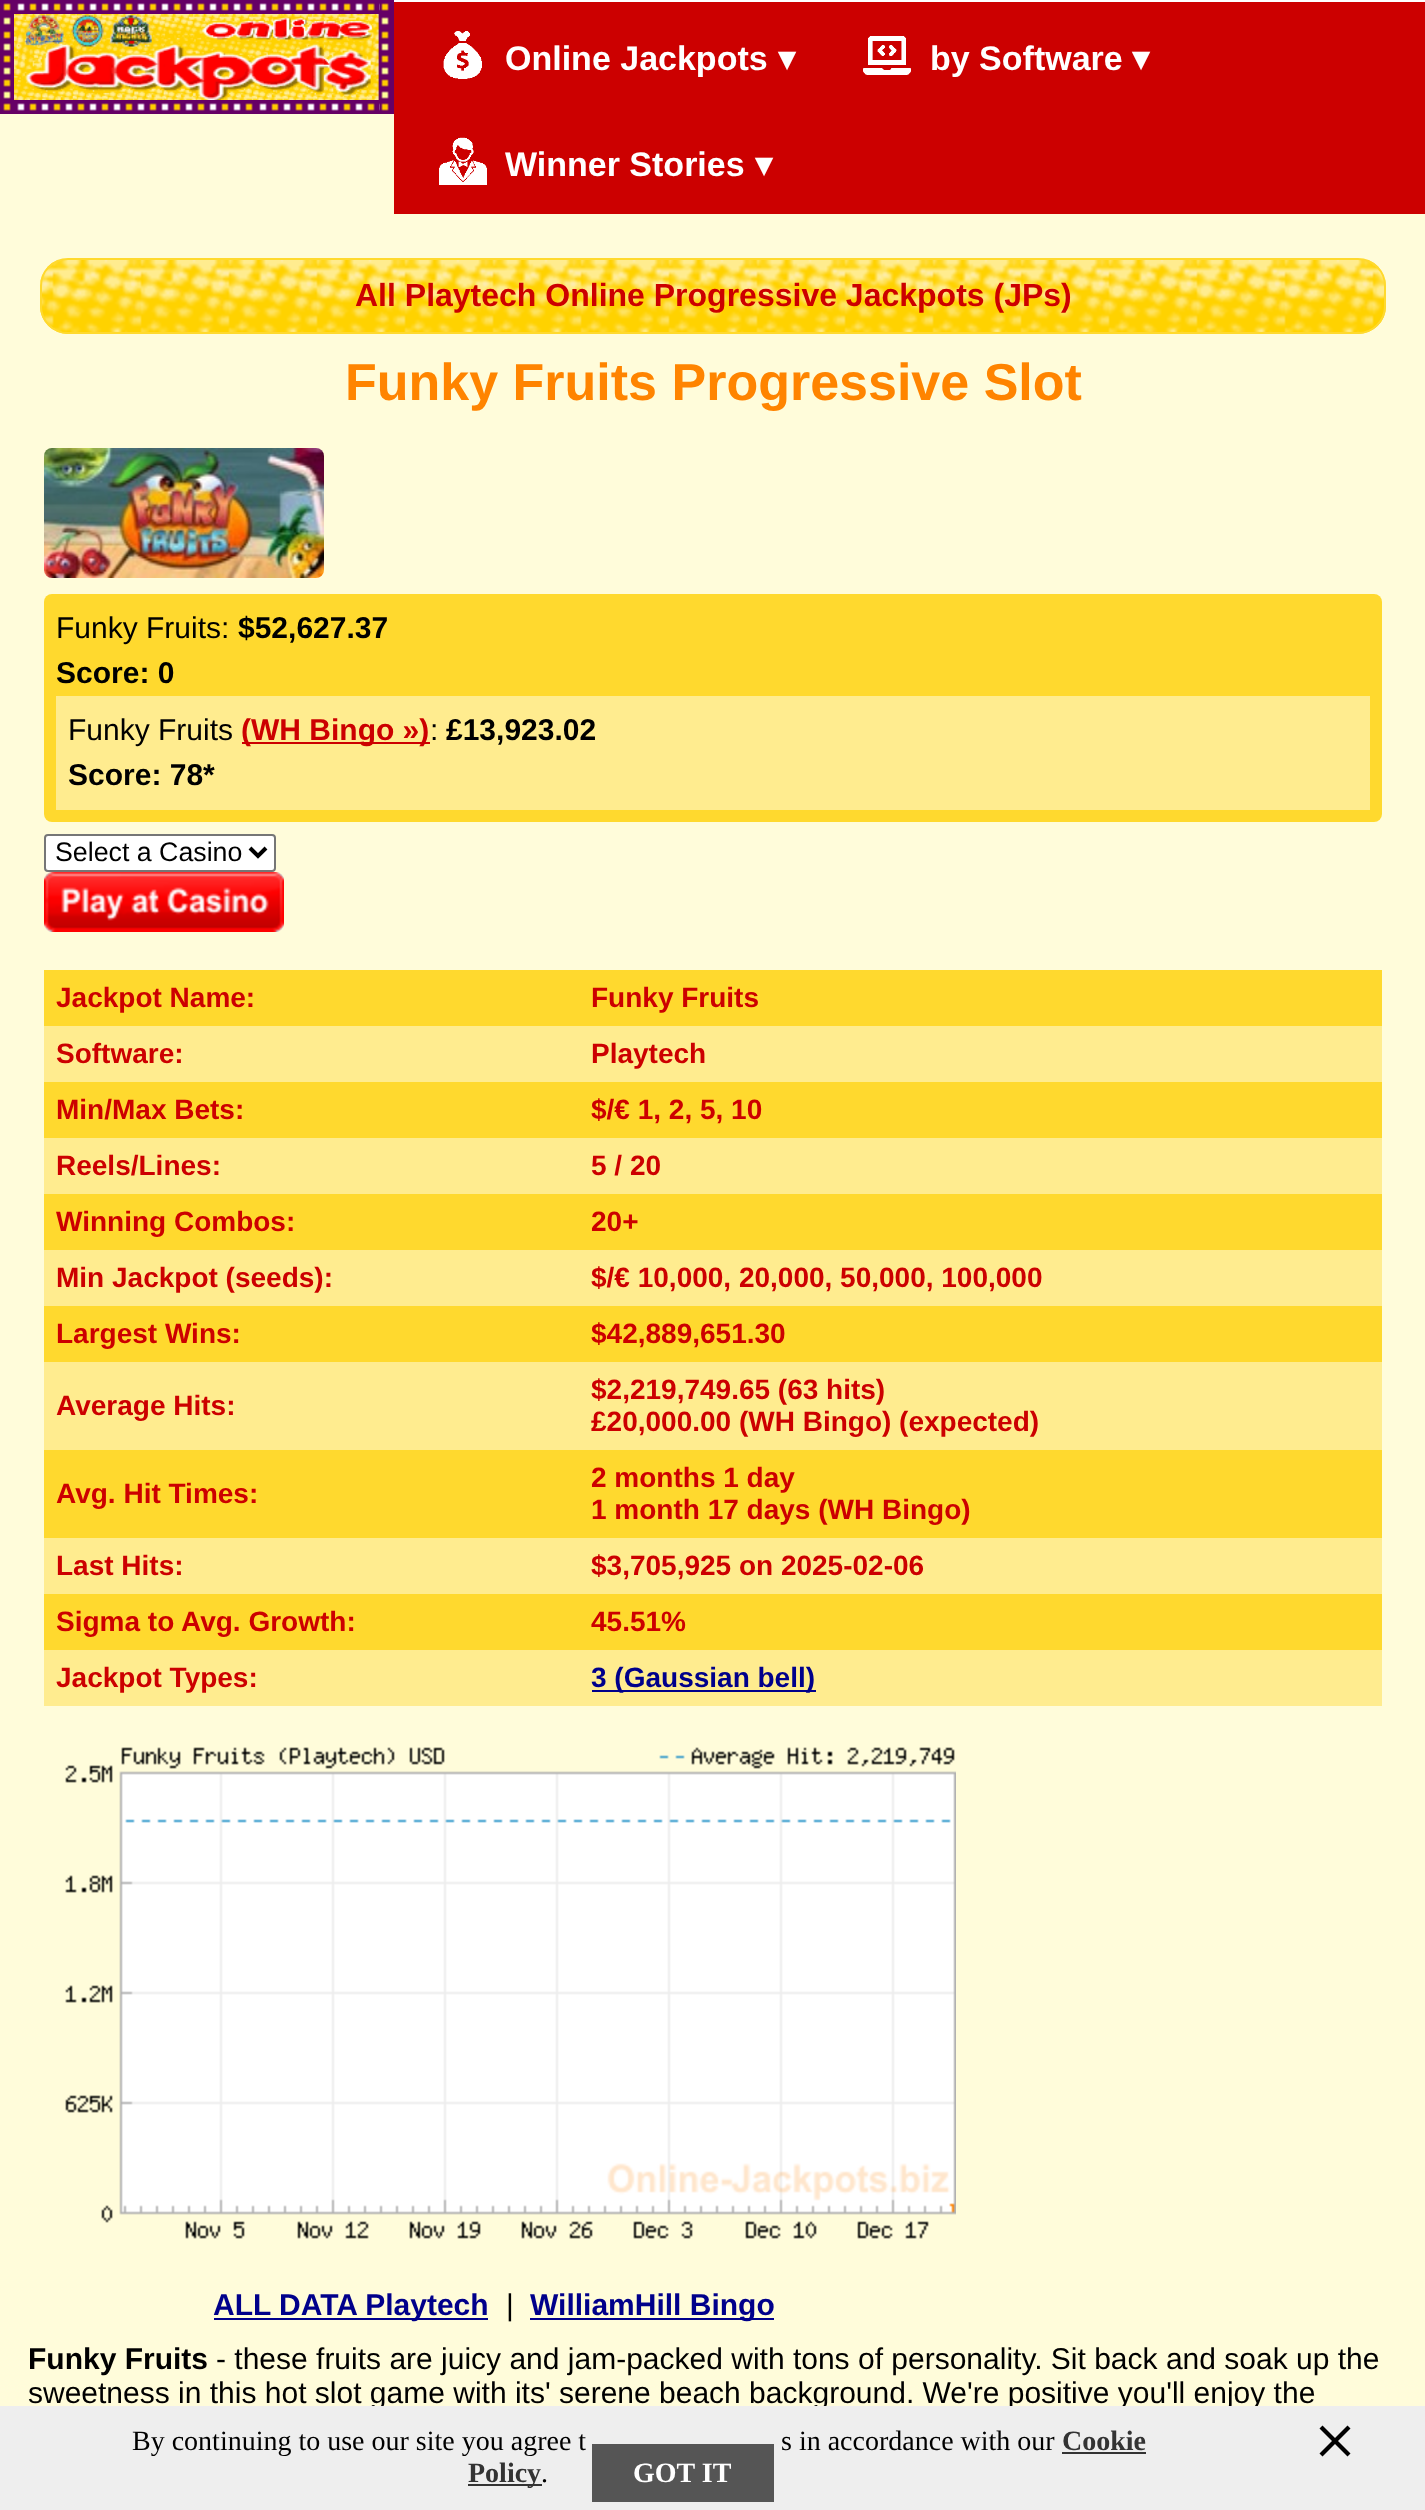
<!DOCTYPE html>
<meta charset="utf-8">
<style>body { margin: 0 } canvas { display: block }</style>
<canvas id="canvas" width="1425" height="2510"></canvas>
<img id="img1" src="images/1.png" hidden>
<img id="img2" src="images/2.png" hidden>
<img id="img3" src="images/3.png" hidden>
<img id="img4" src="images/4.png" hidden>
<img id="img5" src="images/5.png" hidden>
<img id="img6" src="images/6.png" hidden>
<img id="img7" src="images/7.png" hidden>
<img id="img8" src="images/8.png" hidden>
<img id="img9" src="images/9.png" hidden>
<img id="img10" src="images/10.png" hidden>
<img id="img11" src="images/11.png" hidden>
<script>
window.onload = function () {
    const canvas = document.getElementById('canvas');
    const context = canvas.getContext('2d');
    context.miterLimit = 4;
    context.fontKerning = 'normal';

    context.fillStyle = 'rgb(255, 252, 218)';
    context.fillRect(0, 0, 1425, 2510);
    context.drawImage(document.getElementById('img1'), 0, 0, 394, 114);
    context.drawImage(document.getElementById('img2'), 17, 3, 363, 11);
    context.drawImage(document.getElementById('img3'), 14, 14, 366, 86);
    context.drawImage(document.getElementById('img4'), 17, 103, 363, 8);
    context.fillStyle = 'rgb(204, 0, 0)';
    context.fillRect(394, 2, 1031, 212);
    context.fillStyle = 'rgb(255, 255, 255)';
    context.fillRect(394, 0, 1031, 2);
    context.drawImage(document.getElementById('img5'), 443, 31, 39, 48);
    context.drawImage(document.getElementById('img6'), 863, 36, 48, 39);
    context.drawImage(document.getElementById('img7'), 439, 137, 48, 48);
    context.drawImage(document.getElementById('img8'), 40, 260, 1346, 74);
    context.beginPath();
    context.roundRect(41, 259, 1344, 74, 27);
    context.strokeStyle = 'rgb(255, 217, 46)';
    context.lineWidth = 2;
    context.stroke();
    context.drawImage(document.getElementById('img9'), 44, 448, 280, 130);
    context.fillStyle = 'rgb(255, 217, 46)';
    context.beginPath();
    context.roundRect(44, 594, 1338, 228, 8);
    context.fill();
    context.fillStyle = 'rgb(255, 236, 143)';
    context.fillRect(56, 696, 1314, 114);
    context.fillStyle = 'rgb(204, 0, 0)';
    context.fillRect(242, 742, 188, 2);
    context.fillStyle = 'rgb(255, 255, 255)';
    context.beginPath();
    context.roundRect(45, 835, 230, 36, 3);
    context.fill();
    context.strokeStyle = 'rgb(118, 118, 118)';
    context.stroke();
    context.beginPath();
    context.moveTo(250, 848);
    context.lineTo(258, 856);
    context.lineTo(266, 848);
    context.strokeStyle = 'rgb(0, 0, 0)';
    context.lineWidth = 4;
    context.stroke();
    context.drawImage(document.getElementById('img10'), 44, 872, 240, 60);
    context.fillStyle = 'rgb(255, 217, 46)';
    context.fillRect(44, 970, 1338, 56);
    context.fillStyle = 'rgb(255, 236, 143)';
    context.fillRect(44, 1026, 1338, 56);
    context.fillStyle = 'rgb(255, 217, 46)';
    context.fillRect(44, 1082, 1338, 56);
    context.fillStyle = 'rgb(255, 236, 143)';
    context.fillRect(44, 1138, 1338, 56);
    context.fillStyle = 'rgb(255, 217, 46)';
    context.fillRect(44, 1194, 1338, 56);
    context.fillStyle = 'rgb(255, 236, 143)';
    context.fillRect(44, 1250, 1338, 56);
    context.fillStyle = 'rgb(255, 217, 46)';
    context.fillRect(44, 1306, 1338, 56);
    context.fillStyle = 'rgb(255, 236, 143)';
    context.fillRect(44, 1362, 1338, 88);
    context.fillStyle = 'rgb(255, 217, 46)';
    context.fillRect(44, 1450, 1338, 88);
    context.fillStyle = 'rgb(255, 236, 143)';
    context.fillRect(44, 1538, 1338, 56);
    context.fillStyle = 'rgb(255, 217, 46)';
    context.fillRect(44, 1594, 1338, 56);
    context.fillStyle = 'rgb(255, 236, 143)';
    context.fillRect(44, 1650, 1338, 56);
    context.fillStyle = 'rgb(0, 0, 139)';
    context.fillRect(592, 1690, 224, 2);
    context.drawImage(document.getElementById('img11'), 65, 1747, 891, 492);
    context.fillRect(214, 2318, 274, 2);
    context.fillRect(530, 2318, 244, 2);
    context.font = 'bold 34px Liberation Sans';
    context.fillStyle = 'rgb(255, 255, 255)';
    context.fillText('Online Jackpots', 505, 70);
    context.font = 'bold 34px DejaVu Sans';
    context.fillText('▾', 778, 70);
    context.font = 'bold 34px Liberation Sans';
    context.fillText('by Software', 930, 70);
    context.font = 'bold 34px DejaVu Sans';
    context.fillText('▾', 1132, 70);
    context.font = 'bold 34px Liberation Sans';
    context.fillText('Winner Stories', 505, 176);
    context.font = 'bold 34px DejaVu Sans';
    context.fillText('▾', 755, 176);
    context.font = 'bold 32px Liberation Sans';
    context.fillStyle = 'rgb(204, 0, 0)';
    context.fillText('All Playtech Online Progressive Jackpots (JPs)', 355, 306);
    context.font = 'bold 52px Liberation Sans';
    context.fillStyle = 'rgb(255, 132, 0)';
    context.fillText('Funky Fruits Progressive Slot', 345, 400);
    context.font = '30px Liberation Sans';
    context.fillStyle = 'rgb(0, 0, 0)';
    context.fillText('Funky Fruits:', 56, 638);
    context.font = 'bold 30px Liberation Sans';
    context.fillText('$52,627.37', 238, 638);
    context.fillText('Score: 0', 56, 683);
    context.font = '30px Liberation Sans';
    context.fillText('Funky Fruits', 68, 740);
    context.font = 'bold 30px Liberation Sans';
    context.fillStyle = 'rgb(204, 0, 0)';
    context.fillText('(WH Bingo »)', 241, 740);
    context.font = '30px Liberation Sans';
    context.fillStyle = 'rgb(0, 0, 0)';
    context.fillText(':', 430, 740);
    context.font = 'bold 30px Liberation Sans';
    context.fillText('£13,923.02', 446, 740);
    context.fillText('Score: 78*', 68, 785);
    context.font = '26.75px Liberation Sans';
    context.fillText('Select a Casino', 55, 861);
    context.font = 'bold 28px Liberation Sans';
    context.fillStyle = 'rgb(204, 0, 0)';
    context.fillText('Jackpot Name:', 56, 1007);
    context.fillText('Funky Fruits', 591, 1007);
    context.fillText('Software:', 56, 1063);
    context.fillText('Playtech', 591, 1063);
    context.fillText('Min/Max Bets:', 56, 1119);
    context.fillText('$/€ 1, 2, 5, 10', 591, 1119);
    context.fillText('Reels/Lines:', 56, 1175);
    context.fillText('5 / 20', 591, 1175);
    context.fillText('Winning Combos:', 56, 1231);
    context.fillText('20+', 591, 1231);
    context.fillText('Min Jackpot (seeds):', 56, 1287);
    context.fillText('$/€ 10,000, 20,000, 50,000, 100,000', 591, 1287);
    context.fillText('Largest Wins:', 56, 1343);
    context.fillText('$42,889,651.30', 591, 1343);
    context.fillText('Average Hits:', 56, 1415);
    context.fillText('$2,219,749.65 (63 hits)', 591, 1399);
    context.fillText('£20,000.00 (WH Bingo) (expected)', 591, 1431);
    context.fillText('Avg. Hit Times:', 56, 1503);
    context.fillText('2 months 1 day', 591, 1487);
    context.fillText('1 month 17 days (WH Bingo)', 591, 1519);
    context.fillText('Last Hits:', 56, 1575);
    context.fillText('$3,705,925 on 2025-02-06', 591, 1575);
    context.fillText('Sigma to Avg. Growth:', 56, 1631);
    context.fillText('45.51%', 591, 1631);
    context.fillText('Jackpot Types:', 56, 1687);
    context.fillStyle = 'rgb(0, 0, 139)';
    context.fillText('3 (Gaussian bell)', 591, 1687);
    context.font = 'bold 30px Liberation Sans';
    context.fillText('ALL DATA Playtech', 213, 2315);
    context.font = '30px Liberation Sans';
    context.fillStyle = 'rgb(0, 0, 0)';
    context.fillText('|', 506, 2315);
    context.font = 'bold 30px Liberation Sans';
    context.fillStyle = 'rgb(0, 0, 139)';
    context.fillText('WilliamHill Bingo', 530, 2315);
    context.fillStyle = 'rgb(0, 0, 0)';
    context.fillText('Funky Fruits', 28, 2369);
    context.font = '30px Liberation Sans';
    context.fillText('- these fruits are juicy and jam-packed with tons of personality. Sit back and soak up the', 216, 2369);
    context.fillText('sweetness in this hot slot game with its\' serene beach background. We\'re positive you\'ll enjoy the', 28, 2403);
    context.fillStyle = 'rgb(238, 238, 238)';
    context.fillRect(0, 2406, 1425, 104);
    context.font = '28px Liberation Serif';
    context.fillStyle = 'rgb(0, 0, 0)';
    context.fillText('By continuing to use our site you agree t', 132, 2450);
    context.fillText('s in accordance with our', 781, 2450);
    context.font = 'bold 28px Liberation Serif';
    context.fillStyle = 'rgb(51, 51, 51)';
    context.fillText('Cookie', 1062, 2450);
    context.fillRect(1062, 2452, 84, 2);
    context.fillRect(468, 2484, 74, 2);
    context.fillText('Policy', 468, 2482);
    context.font = '28px Liberation Serif';
    context.fillStyle = 'rgb(0, 0, 0)';
    context.fillText('.', 541, 2482);
    context.fillStyle = 'rgb(85, 85, 85)';
    context.fillRect(592, 2444, 182, 58);
    context.font = 'bold 28px Liberation Serif';
    context.fillStyle = 'rgb(255, 255, 255)';
    context.fillText('GOT IT', 633, 2482);
    context.fillStyle = 'rgb(0, 0, 0)';
    context.beginPath();
    context.moveTo(1322.5, 2425.5);
    context.lineTo(1350.5, 2453.5);
    context.lineTo(1347.5, 2456.5);
    context.lineTo(1319.5, 2428.5);
    context.closePath();
    context.fill();
    context.beginPath();
    context.moveTo(1319.5, 2453.5);
    context.lineTo(1347.5, 2425.5);
    context.lineTo(1350.5, 2428.5);
    context.lineTo(1322.5, 2456.5);
    context.closePath();
    context.fill();
};
</script>
